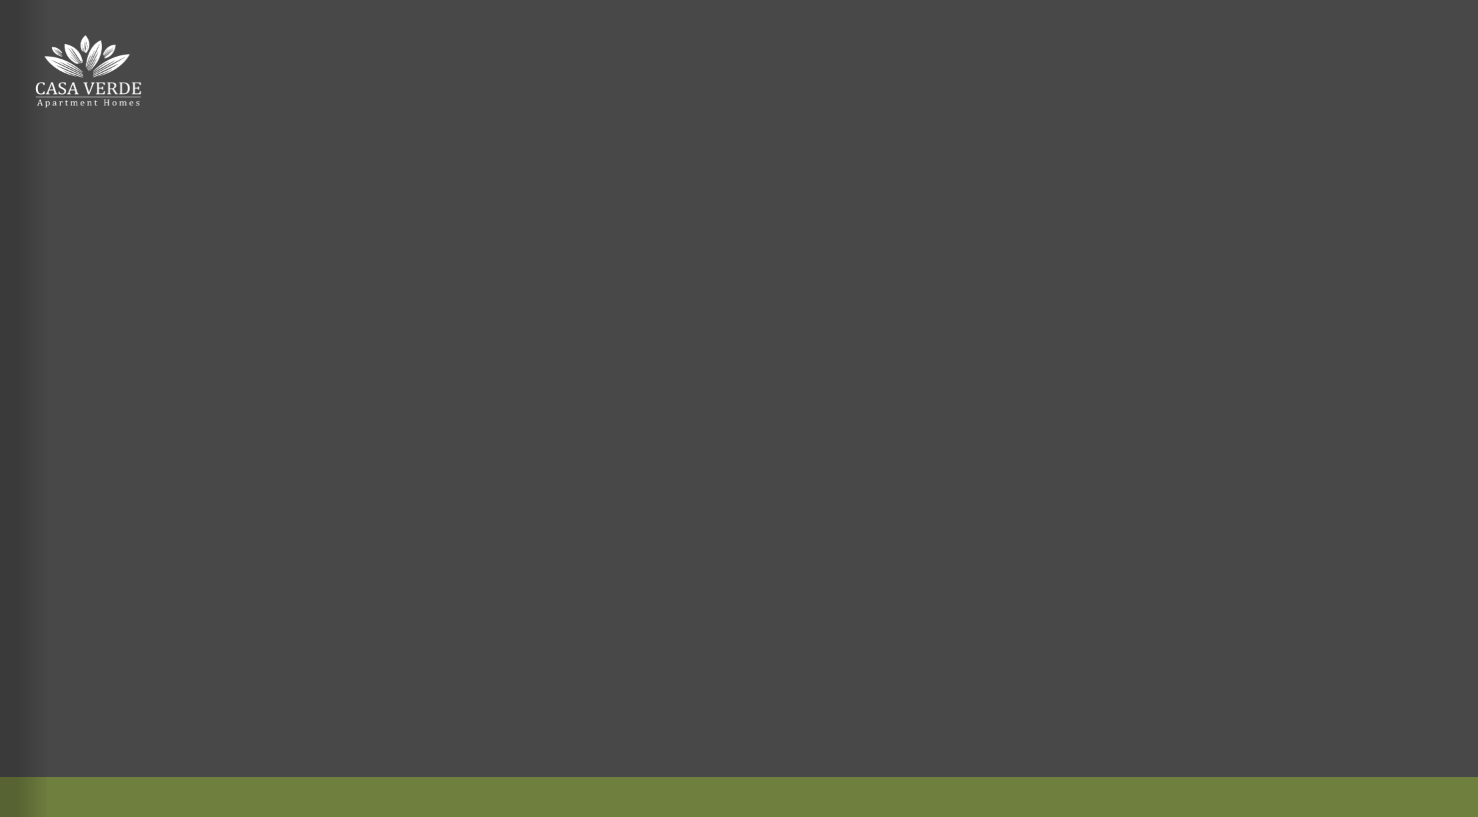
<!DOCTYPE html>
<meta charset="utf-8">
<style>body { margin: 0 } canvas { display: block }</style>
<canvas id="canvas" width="1478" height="817"></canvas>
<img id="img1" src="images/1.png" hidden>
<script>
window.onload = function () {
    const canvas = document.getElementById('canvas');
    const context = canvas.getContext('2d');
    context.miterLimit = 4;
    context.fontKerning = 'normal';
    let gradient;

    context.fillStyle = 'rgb(72, 72, 72)';
    context.fillRect(0, 0, 1478, 817);
    context.fillStyle = 'rgb(111, 127, 62)';
    context.fillRect(0, 777, 1478, 40);
    gradient = context.createLinearGradient(0, 409, 50, 409);
    gradient.addColorStop(0.34, 'rgba(15, 15, 15, 0.25)');
    gradient.addColorStop(1, 'rgba(15, 15, 15, 0)');
    context.fillStyle = gradient;
    context.fillRect(0, 0, 47, 817);
    context.drawImage(document.getElementById('img1'), 35, 35, 107, 73);
};
</script>
